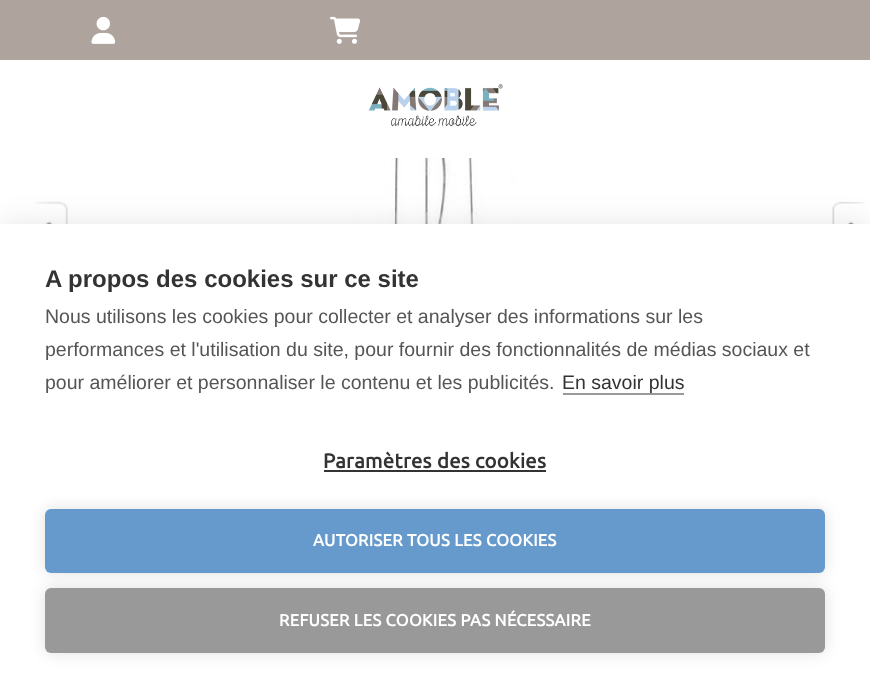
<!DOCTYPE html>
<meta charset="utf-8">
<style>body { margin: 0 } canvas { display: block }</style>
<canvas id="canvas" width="870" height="689"></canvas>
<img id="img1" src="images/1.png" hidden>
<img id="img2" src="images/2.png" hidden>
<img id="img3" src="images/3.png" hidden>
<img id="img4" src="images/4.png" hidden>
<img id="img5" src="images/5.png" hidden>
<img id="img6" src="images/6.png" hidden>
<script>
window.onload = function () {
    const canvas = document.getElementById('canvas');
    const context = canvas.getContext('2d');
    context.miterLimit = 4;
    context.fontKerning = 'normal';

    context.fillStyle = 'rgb(255, 255, 255)';
    context.fillRect(0, 0, 870, 689);
    context.fillStyle = 'rgb(175, 163, 157)';
    context.fillRect(0, 0, 870, 60);
    context.drawImage(document.getElementById('img1'), 91, 16, 25, 28);
    context.drawImage(document.getElementById('img2'), 330, 16, 31, 28);
    context.drawImage(document.getElementById('img3'), 368, 84, 135, 43);
    context.drawImage(document.getElementById('img4'), 35, 201, 33, 23);
    context.drawImage(document.getElementById('img5'), 335, 158, 209, 66);
    context.drawImage(document.getElementById('img6'), 832, 202, 34, 22);
    context.fillStyle = 'rgba(0, 0, 0, 0.1)';
    context.filter = 'blur(15px)';
    context.beginPath();
    context.rect(0, 224, 870, 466);
    context.fill();
    context.filter = 'none';
    context.fillStyle = 'rgb(255, 255, 255)';
    context.fillRect(0, 224, 870, 465);
    context.fillStyle = 'rgb(153, 153, 153)';
    context.fillRect(563, 393, 121, 2);
    context.fillStyle = 'rgb(51, 51, 51)';
    context.fillRect(324, 470, 222, 2);
    context.fillStyle = 'rgba(0, 0, 0, 0.12)';
    context.filter = 'blur(7.5px)';
    context.beginPath();
    context.roundRect(45, 509, 780, 64, 6);
    context.fill();
    context.filter = 'none';
    context.fillStyle = 'rgb(102, 154, 204)';
    context.beginPath();
    context.roundRect(45, 509, 780, 64, 6);
    context.fill();
    context.fillStyle = 'rgba(0, 0, 0, 0.12)';
    context.filter = 'blur(7.5px)';
    context.beginPath();
    context.roundRect(45, 588, 780, 65, 6);
    context.fill();
    context.filter = 'none';
    context.fillStyle = 'rgb(153, 153, 153)';
    context.beginPath();
    context.roundRect(45, 588, 780, 65, 6);
    context.fill();
    context.font = 'bold 24px Liberation Sans';
    context.fillStyle = 'rgb(51, 51, 51)';
    context.fillText('A propos des cookies sur ce site', 45, 287);
    context.font = '19.5px Liberation Sans';
    context.fillStyle = 'rgb(85, 85, 85)';
    context.fillText('Nous utilisons les cookies pour collecter et analyser des informations sur les', 45, 323);
    context.fillText('performances et l\'utilisation du site, pour fournir des fonctionnalités de médias sociaux et', 45, 356);
    context.fillText('pour améliorer et personnaliser le contenu et les publicités.', 45, 389);
    context.fillStyle = 'rgb(51, 51, 51)';
    context.fillText('En savoir plus', 562, 389);
    context.letterSpacing = '0.3px';
    context.font = 'bold 20.25px Ubuntu';
    context.fillText('Paramètres des cookies', 323, 468);
    context.font = 'bold 16.5px Ubuntu';
    context.fillStyle = 'rgb(255, 255, 255)';
    context.fillText('AUTORISER TOUS LES COOKIES', 313, 546);
    context.fillText('REFUSER LES COOKIES PAS NÉCESSAIRE', 279, 626);
};
</script>
